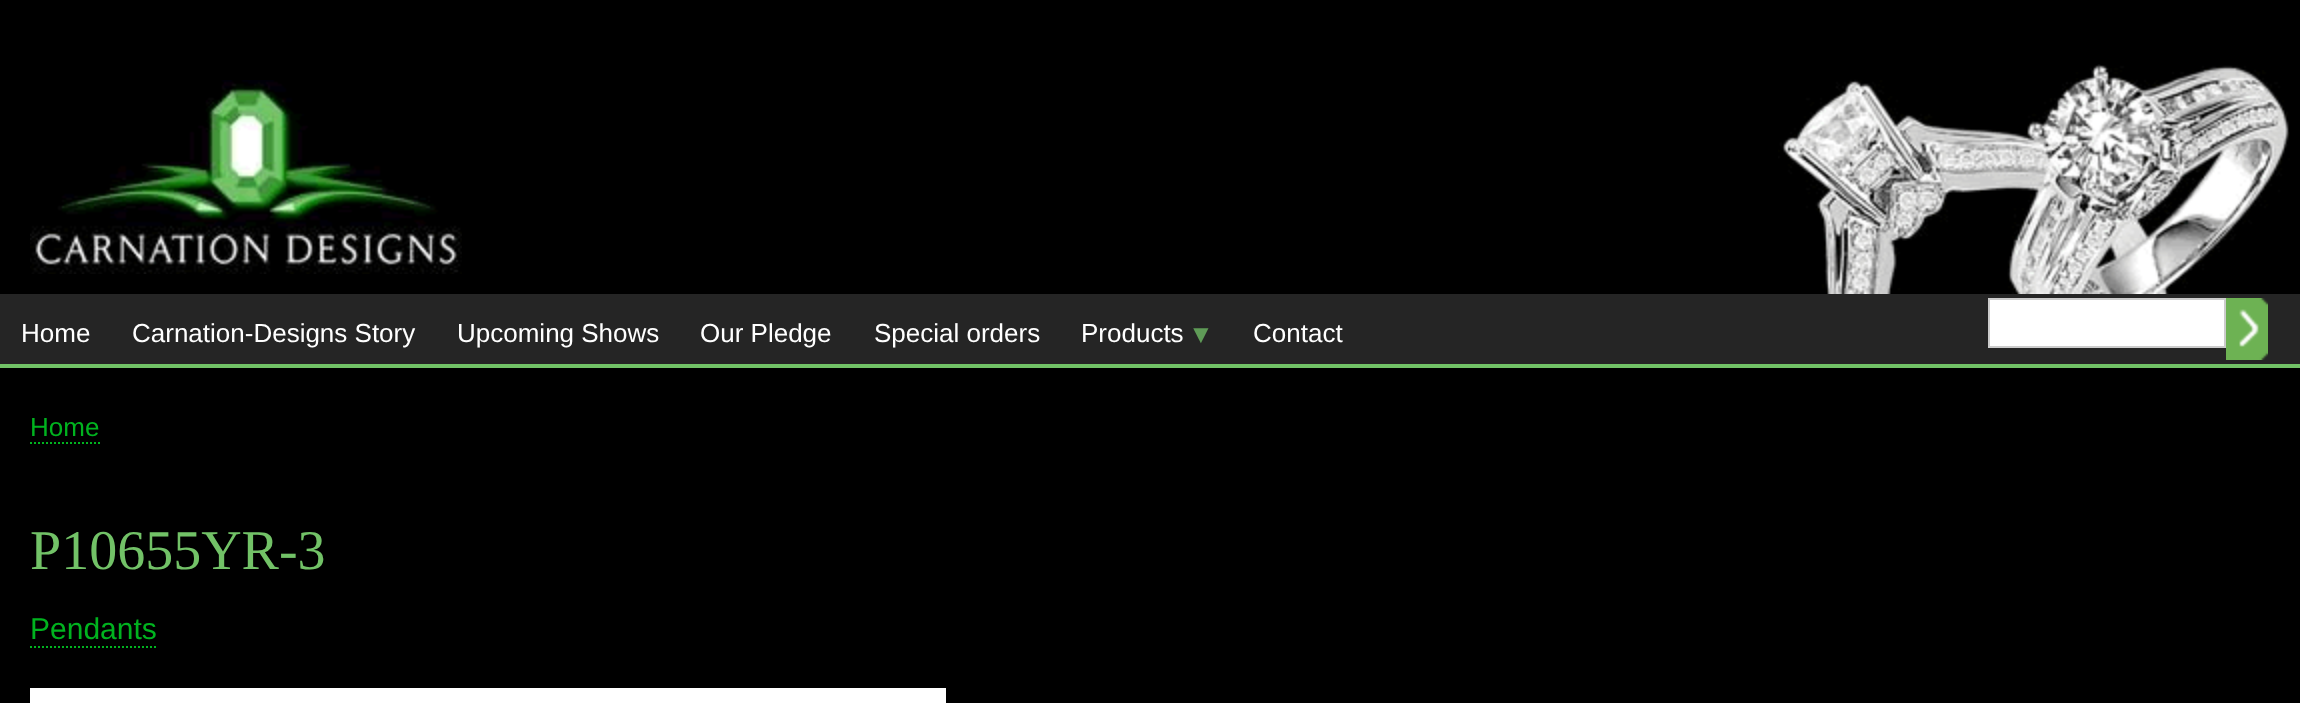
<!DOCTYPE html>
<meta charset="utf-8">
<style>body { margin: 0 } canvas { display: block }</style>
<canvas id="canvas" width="2300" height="703"></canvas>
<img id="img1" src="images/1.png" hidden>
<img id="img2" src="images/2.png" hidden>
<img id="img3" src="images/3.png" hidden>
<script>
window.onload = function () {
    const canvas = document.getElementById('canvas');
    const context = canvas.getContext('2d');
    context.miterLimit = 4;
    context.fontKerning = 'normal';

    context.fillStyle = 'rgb(0, 0, 0)';
    context.fillRect(0, 0, 2300, 703);
    context.drawImage(document.getElementById('img1'), 1778, 64, 512, 230);
    context.drawImage(document.getElementById('img2'), 30, 80, 432, 194);
    context.fillStyle = 'rgb(37, 37, 37)';
    context.fillRect(0, 294, 2300, 70);
    context.fillStyle = 'rgb(114, 194, 103)';
    context.fillRect(0, 364, 2300, 4);
    context.fillStyle = 'rgb(255, 255, 255)';
    context.beginPath();
    context.rect(1989, 299, 236, 48);
    context.fill();
    context.strokeStyle = 'rgb(204, 204, 204)';
    context.lineWidth = 2;
    context.stroke();
    context.drawImage(document.getElementById('img3'), 2226, 298, 42, 62);
    context.beginPath();
    context.moveTo(30, 443);
    context.lineTo(100, 443);
    context.strokeStyle = 'rgb(0, 179, 31)';
    context.setLineDash([2, 2]);
    context.stroke();
    context.beginPath();
    context.moveTo(30, 647);
    context.lineTo(156, 647);
    context.stroke();
    context.fillRect(30, 688, 916, 15);
    context.font = '26px Liberation Sans';
    context.fillText('Home', 21, 342);
    context.fillText('Carnation-Designs Story', 132, 342);
    context.fillText('Upcoming Shows', 457, 342);
    context.fillText('Our Pledge', 700, 342);
    context.fillText('Special orders', 874, 342);
    context.fillText('Products', 1081, 342);
    context.fillStyle = 'rgb(95, 155, 87)';
    context.fillText('▼', 1188, 343);
    context.fillStyle = 'rgb(255, 255, 255)';
    context.fillText('Contact', 1253, 342);
    context.fillStyle = 'rgb(0, 179, 31)';
    context.fillText('Home', 30, 436);
    context.font = '56px Liberation Serif';
    context.fillStyle = 'rgb(114, 194, 103)';
    context.fillText('P10655YR-3', 30, 569);
    context.font = '30px Liberation Sans';
    context.fillStyle = 'rgb(0, 179, 31)';
    context.fillText('Pendants', 30, 639);
};
</script>
